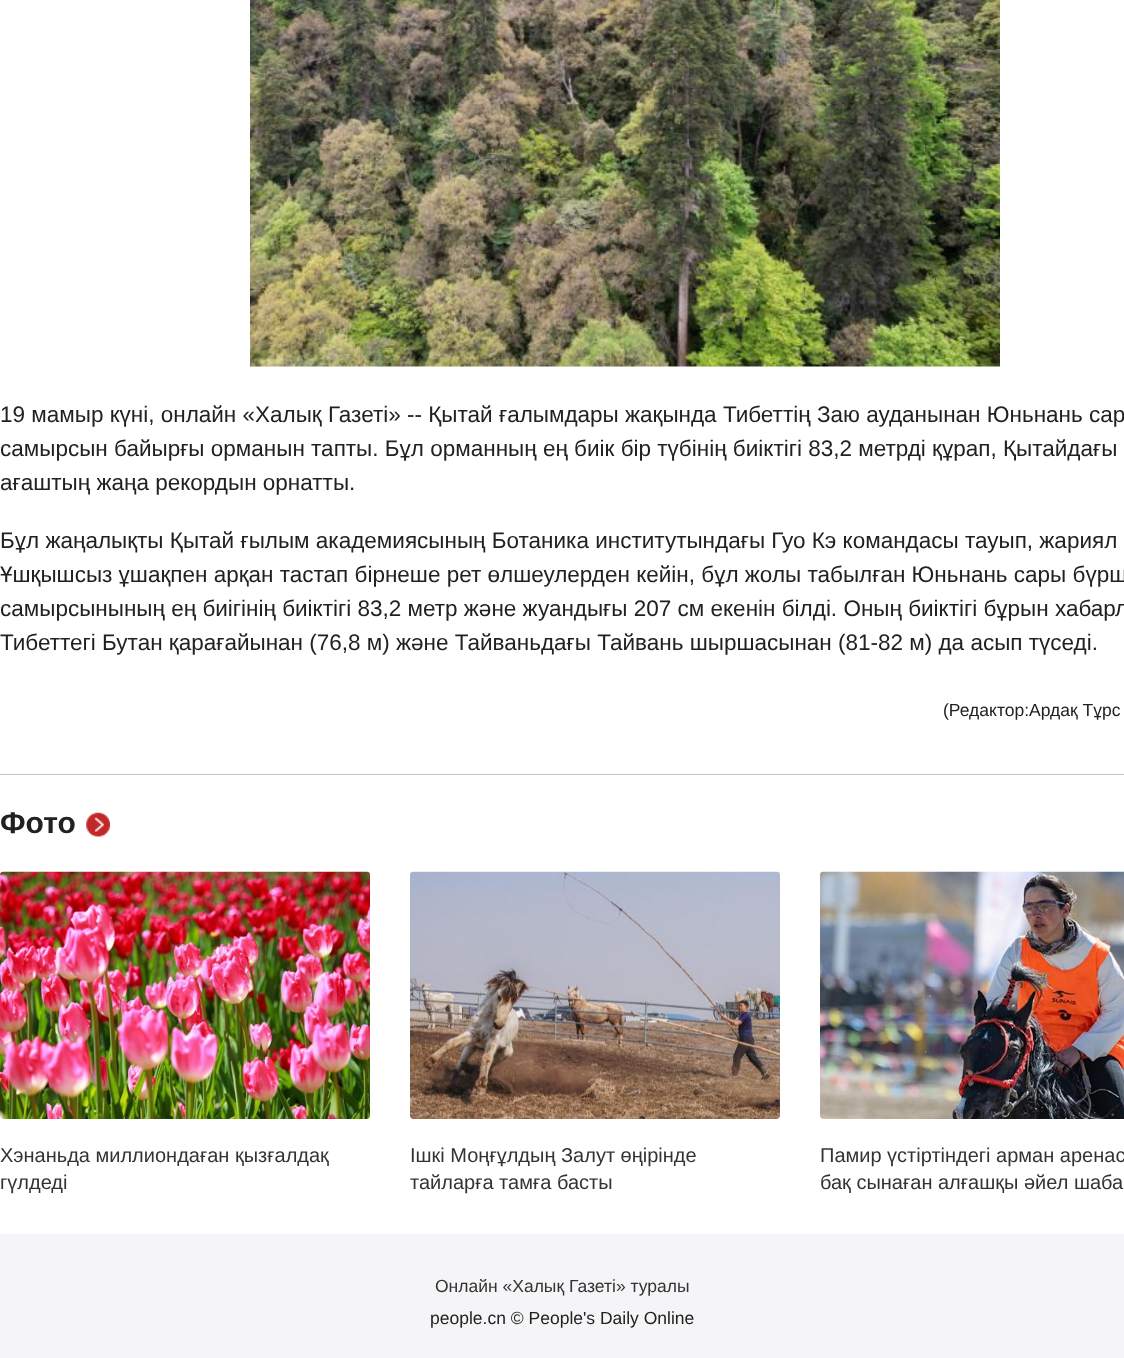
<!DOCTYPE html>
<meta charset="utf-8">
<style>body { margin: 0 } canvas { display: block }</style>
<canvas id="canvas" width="1124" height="1358"></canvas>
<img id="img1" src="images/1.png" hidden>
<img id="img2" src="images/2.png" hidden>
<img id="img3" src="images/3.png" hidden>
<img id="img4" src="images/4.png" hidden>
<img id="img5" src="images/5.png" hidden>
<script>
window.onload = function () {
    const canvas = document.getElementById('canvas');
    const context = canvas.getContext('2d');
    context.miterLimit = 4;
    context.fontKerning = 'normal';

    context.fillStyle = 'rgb(255, 255, 255)';
    context.fillRect(0, 0, 1124, 1358);
    context.drawImage(document.getElementById('img1'), 250, 0, 750, 367);
    context.fillStyle = 'rgb(192, 192, 192)';
    context.fillRect(0, 774, 1124, 1);
    context.drawImage(document.getElementById('img2'), 86, 812, 24, 25);
    context.drawImage(document.getElementById('img3'), 0, 871, 370, 248);
    context.drawImage(document.getElementById('img4'), 410, 871, 370, 248);
    context.drawImage(document.getElementById('img5'), 820, 871, 304, 248);
    context.fillStyle = 'rgb(245, 245, 247)';
    context.fillRect(0, 1234, 1124, 124);
    context.font = '22.5px Liberation Sans';
    context.fillStyle = 'rgb(33, 33, 33)';
    context.fillText('19 мамыр күні, онлайн «Халық Газеті» -- Қытай ғалымдары жақында Тибеттің Заю ауданынан Юньнань сар', 0, 422);
    context.fillText('самырсын байырғы орманын тапты. Бұл орманның ең биік бір түбінің биіктігі 83,2 метрді құрап, Қытайдағы', 0, 456);
    context.fillText('ағаштың жаңа рекордын орнатты.', 0, 490);
    context.fillText('Бұл жаңалықты Қытай ғылым академиясының Ботаника институтындағы Гуо Кэ командасы тауып, жариял', 0, 548);
    context.fillText('Ұшқышсыз ұшақпен арқан тастап бірнеше рет өлшеулерден кейін, бұл жолы табылған Юньнань сары бүрш', 0, 582);
    context.fillText('самырсынының ең биігінің биіктігі 83,2 метр және жуандығы 207 см екенін білді. Оның биіктігі бұрын хабарл', 0, 616);
    context.fillText('Тибеттегі Бутан қарағайынан (76,8 м) және Тайваньдағы Тайвань шыршасынан (81-82 м) да асып түседі.', 0, 650);
    context.font = '17.5px Liberation Sans';
    context.fillText('(Редактор:Ардақ Тұрс', 943, 716);
    context.font = 'bold 30px Liberation Sans';
    context.fillText('Фото', 0, 833);
    context.font = '20px Liberation Sans';
    context.fillStyle = 'rgb(51, 51, 51)';
    context.fillText('Хэнаньда миллиондаған қызғалдақ', 0, 1162);
    context.fillText('гүлдеді', 0, 1189);
    context.fillText('Ішкі Моңғұлдың Залут өңірінде', 410, 1162);
    context.fillText('тайларға тамға басты', 410, 1189);
    context.fillText('Памир үстіртіндегі арман аренас', 820, 1162);
    context.fillText('бақ сынаған алғашқы әйел шаба', 820, 1189);
    context.font = '17.5px Liberation Sans';
    context.fillText('Онлайн «Халық Газеті» туралы', 435, 1292);
    context.fillStyle = 'rgb(33, 33, 33)';
    context.fillText('people.cn © People\'s Daily Online', 430, 1324);
};
</script>
